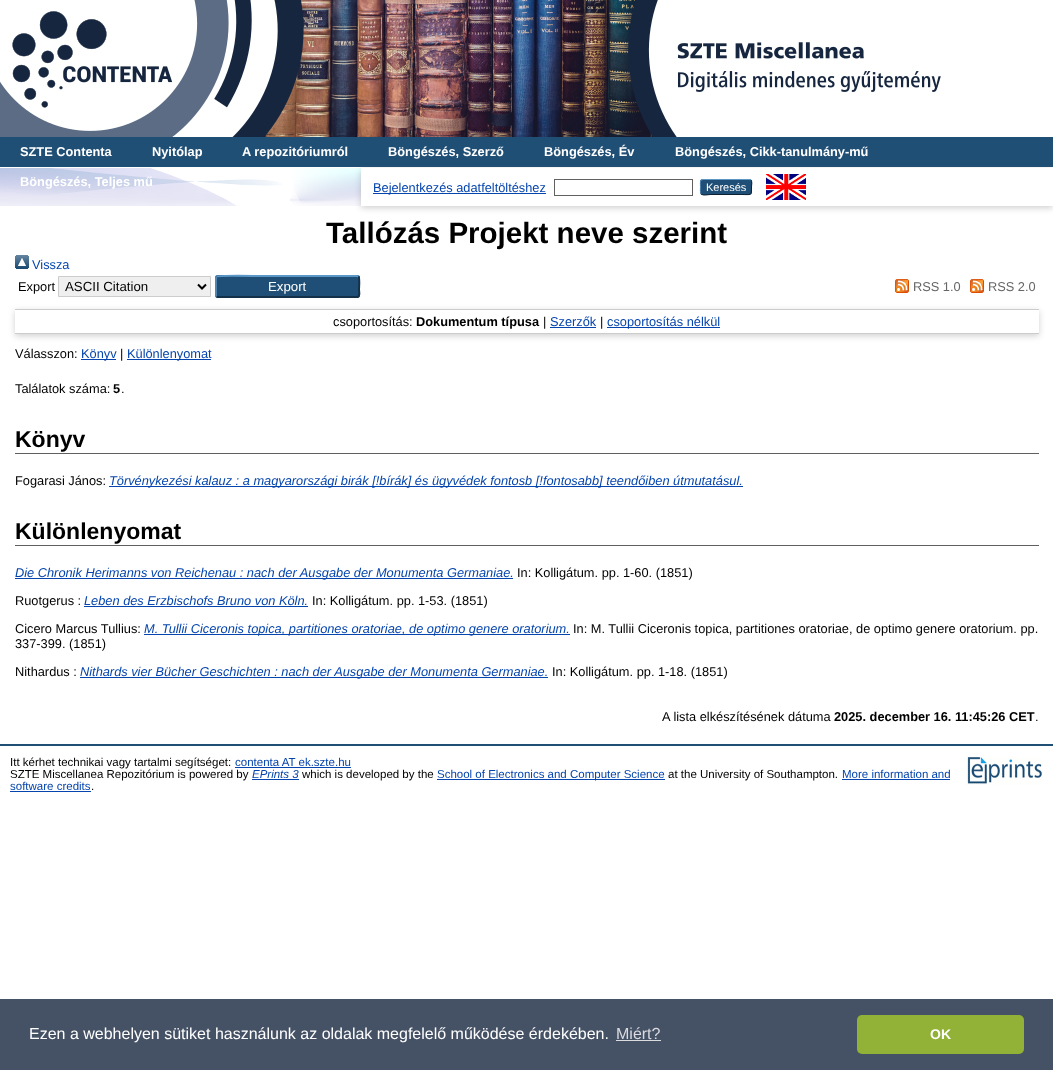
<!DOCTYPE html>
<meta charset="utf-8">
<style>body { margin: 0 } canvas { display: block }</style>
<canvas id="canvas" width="1053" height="1070"></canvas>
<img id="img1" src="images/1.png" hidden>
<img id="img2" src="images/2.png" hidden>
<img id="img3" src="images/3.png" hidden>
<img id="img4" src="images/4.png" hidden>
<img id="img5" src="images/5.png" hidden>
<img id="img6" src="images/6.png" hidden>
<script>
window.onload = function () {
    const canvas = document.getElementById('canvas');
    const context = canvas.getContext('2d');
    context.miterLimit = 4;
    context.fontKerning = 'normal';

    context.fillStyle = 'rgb(255, 255, 255)';
    context.fillRect(0, 0, 1053, 1070);
    context.drawImage(document.getElementById('img1'), 0, 168, 361, 38);
    context.drawImage(document.getElementById('img2'), 0, 0, 941, 137);
    context.fillStyle = 'rgb(32, 79, 118)';
    context.fillRect(0, 137, 1053, 30);
    context.fillStyle = 'rgba(100, 100, 100, 0.3)';
    context.filter = 'blur(3px)';
    context.beginPath();
    context.rect(361, 170, 692, 38);
    context.fill();
    context.filter = 'none';
    context.fillStyle = 'rgb(255, 255, 255)';
    context.fillRect(361, 168, 692, 38);
    context.fillStyle = 'rgb(6, 69, 173)';
    context.fillRect(373, 193, 173, 1);
    context.strokeStyle = 'rgb(96, 96, 96)';
    context.strokeRect(554.5, 179.5, 138, 16);
    context.fillStyle = 'rgb(31, 79, 118)';
    context.beginPath();
    context.roundRect(700, 179, 52, 16, 3);
    context.fill();
    context.beginPath();
    context.moveTo(701, 180);
    context.lineTo(703, 179.5);
    context.lineTo(749, 179.5);
    context.lineTo(751, 180);
    context.strokeStyle = 'rgb(91, 151, 199)';
    context.stroke();
    context.beginPath();
    context.moveTo(751, 180);
    context.bezierCurveTo(752.5, 182, 751.5, 185, 751.5, 187);
    context.bezierCurveTo(751.5, 196, 751.5, 194.5, 741.5, 194.5);
    context.lineTo(710.5, 194.5);
    context.bezierCurveTo(707.5, 194.5, 703.5, 196, 701, 194);
    context.strokeStyle = 'rgb(13, 33, 49)';
    context.stroke();
    context.beginPath();
    context.moveTo(701, 194);
    context.bezierCurveTo(700, 192.5, 700.5, 188.5, 700.5, 187);
    context.bezierCurveTo(700.5, 185.5, 700, 181.5, 701, 180);
    context.strokeStyle = 'rgb(82, 135, 179)';
    context.stroke();
    context.drawImage(document.getElementById('img3'), 766, 174, 40, 26);
    context.drawImage(document.getElementById('img4'), 15, 255, 14, 14);
    context.fillStyle = 'rgb(239, 239, 239)';
    context.beginPath();
    context.rect(58.5, 276.5, 152, 20);
    context.fill();
    context.strokeStyle = 'rgb(204, 204, 204)';
    context.stroke();
    context.beginPath();
    context.moveTo(198, 284.5);
    context.lineTo(202, 288.5);
    context.lineTo(206, 284.5);
    context.strokeStyle = 'rgb(0, 0, 0)';
    context.lineWidth = 2;
    context.stroke();
    context.fillStyle = 'rgb(31, 79, 118)';
    context.beginPath();
    context.roundRect(215, 275, 145, 23, 3);
    context.fill();
    context.beginPath();
    context.moveTo(216.5, 276.5);
    context.bezierCurveTo(218, 275, 261.5, 276, 264.5, 276);
    context.lineTo(357, 276);
    context.lineTo(358.5, 276.5);
    context.strokeStyle = 'rgb(91, 151, 199)';
    context.stroke();
    context.beginPath();
    context.moveTo(358.5, 276.5);
    context.bezierCurveTo(360, 278, 359, 287, 359, 289.5);
    context.bezierCurveTo(359, 291, 360.5, 296, 357.5, 297);
    context.lineTo(218, 297);
    context.lineTo(216.5, 296.5);
    context.strokeStyle = 'rgb(19, 50, 74)';
    context.stroke();
    context.beginPath();
    context.moveTo(216.5, 296.5);
    context.bezierCurveTo(216, 296, 216, 295.5, 216, 295);
    context.lineTo(216, 278);
    context.bezierCurveTo(216, 277.5, 216, 277, 216.5, 276.5);
    context.strokeStyle = 'rgb(82, 135, 179)';
    context.stroke();
    context.drawImage(document.getElementById('img5'), 895, 279, 14, 14);
    context.drawImage(document.getElementById('img5'), 970, 279, 14, 14);
    context.save();
    context.beginPath();
    context.moveTo(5, 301);
    context.lineTo(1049, 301);
    context.lineTo(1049, 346);
    context.lineTo(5, 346);
    context.closePath();
    context.moveTo(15, 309);
    context.lineTo(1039, 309);
    context.lineTo(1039, 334);
    context.lineTo(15, 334);
    context.closePath();
    context.clip('evenodd');
    context.fillStyle = 'rgba(100, 100, 100, 0.3)';
    context.filter = 'blur(3px)';
    context.beginPath();
    context.rect(15, 311, 1024, 25);
    context.fill();
    context.filter = 'none';
    context.restore();
    context.fillStyle = 'rgb(204, 204, 204)';
    context.fillRect(15, 309, 1024, 1);
    context.fillRect(15, 333, 1024, 1);
    context.fillStyle = 'rgb(6, 69, 173)';
    context.fillRect(550, 327, 46, 1);
    context.fillRect(607, 327, 113, 1);
    context.fillRect(81, 359, 35, 1);
    context.fillRect(127, 359, 84, 1);
    context.fillStyle = 'rgb(96, 96, 96)';
    context.fillRect(15, 453, 1024, 1);
    context.fillStyle = 'rgb(6, 69, 173)';
    context.fillRect(109, 486, 634, 1);
    context.fillStyle = 'rgb(96, 96, 96)';
    context.fillRect(15, 545, 1024, 1);
    context.fillStyle = 'rgb(6, 69, 173)';
    context.fillRect(15, 578, 498, 1);
    context.fillRect(84, 606, 224, 1);
    context.fillRect(144, 634, 426, 1);
    context.fillRect(80, 677, 468, 1);
    context.fillStyle = 'rgb(32, 79, 118)';
    context.fillRect(0, 744, 1053, 2);
    context.fillStyle = 'rgb(6, 69, 173)';
    context.fillRect(235, 767, 116, 1);
    context.fillRect(252, 779, 47, 1);
    context.fillRect(437, 779, 228, 1);
    context.fillRect(842, 779, 108, 1);
    context.fillRect(10, 791, 81, 1);
    context.drawImage(document.getElementById('img6'), 966, 757, 76, 28);
    context.fillStyle = 'rgb(69, 81, 101)';
    context.fillRect(0, 999, 1053, 71);
    context.fillStyle = 'rgb(218, 220, 224)';
    context.fillRect(616, 1040, 45, 1);
    context.fillStyle = 'rgb(145, 178, 54)';
    context.beginPath();
    context.roundRect(857, 1015, 167, 39, 5);
    context.fill();
    context.font = 'bold 12.8px Liberation Sans';
    context.fillStyle = 'rgb(255, 255, 255)';
    context.fillText('SZTE Contenta', 20, 156);
    context.fillText('Nyitólap', 152, 156);
    context.fillText('A repozitóriumról', 242, 156);
    context.fillText('Böngészés, Szerző', 388, 156);
    context.fillText('Böngészés, Év', 544, 156);
    context.fillText('Böngészés, Cikk-tanulmány-mű', 675, 156);
    context.fillText('Böngészés, Teljes mű', 20, 186);
    context.font = '12.8px Liberation Sans';
    context.fillStyle = 'rgb(6, 69, 173)';
    context.fillText('Bejelentkezés adatfeltöltéshez', 373, 192);
    context.font = '11px Liberation Sans';
    context.fillStyle = 'rgb(255, 255, 255)';
    context.fillText('Keresés', 706, 191);
    context.font = 'bold 29.5px Liberation Sans';
    context.fillStyle = 'rgb(0, 0, 0)';
    context.fillText('Tallózás Projekt neve szerint', 326, 243);
    context.font = '12.8px Liberation Sans';
    context.fillStyle = 'rgb(6, 69, 173)';
    context.fillText('Vissza', 32, 269);
    context.fillStyle = 'rgb(0, 0, 0)';
    context.fillText('Export', 18, 291);
    context.font = '13.25px Liberation Sans';
    context.fillText('ASCII Citation', 65, 291);
    context.fillStyle = 'rgb(255, 255, 255)';
    context.fillText('Export', 268, 291);
    context.font = '12.8px Liberation Sans';
    context.fillStyle = 'rgb(102, 102, 102)';
    context.fillText('RSS 1.0', 913, 291);
    context.fillText('RSS 2.0', 988, 291);
    context.fillStyle = 'rgb(0, 0, 0)';
    context.fillText('csoportosítás:', 333, 326);
    context.font = 'bold 12.8px Liberation Sans';
    context.fillText('Dokumentum típusa', 416, 326);
    context.font = '12.8px Liberation Sans';
    context.fillText('|', 543, 326);
    context.fillStyle = 'rgb(6, 69, 173)';
    context.fillText('Szerzők', 550, 326);
    context.fillStyle = 'rgb(0, 0, 0)';
    context.fillText('|', 600, 326);
    context.fillStyle = 'rgb(6, 69, 173)';
    context.fillText('csoportosítás nélkül', 607, 326);
    context.fillStyle = 'rgb(0, 0, 0)';
    context.fillText('Válasszon:', 15, 358);
    context.fillStyle = 'rgb(6, 69, 173)';
    context.fillText('Könyv', 81, 358);
    context.fillStyle = 'rgb(0, 0, 0)';
    context.fillText('|', 120, 358);
    context.fillStyle = 'rgb(6, 69, 173)';
    context.fillText('Különlenyomat', 127, 358);
    context.fillStyle = 'rgb(0, 0, 0)';
    context.fillText('Találatok száma:', 15, 393);
    context.font = 'bold 12.8px Liberation Sans';
    context.fillText('5', 113, 393);
    context.font = '12.8px Liberation Sans';
    context.fillText('.', 121, 393);
    context.font = 'bold 23px Liberation Sans';
    context.fillText('Könyv', 15, 447);
    context.font = '12.8px Liberation Sans';
    context.fillText('Fogarasi János:', 15, 485);
    context.font = 'italic 12.8px Liberation Sans';
    context.fillStyle = 'rgb(6, 69, 173)';
    context.fillText('Törvénykezési kalauz : a magyarországi birák [!bírák] és ügyvédek fontosb [!fontosabb] teendőiben útmutatásul.', 109, 485);
    context.font = 'bold 23px Liberation Sans';
    context.fillStyle = 'rgb(0, 0, 0)';
    context.fillText('Különlenyomat', 15, 539);
    context.font = 'italic 12.8px Liberation Sans';
    context.fillStyle = 'rgb(6, 69, 173)';
    context.fillText('Die Chronik Herimanns von Reichenau : nach der Ausgabe der Monumenta Germaniae.', 15, 577);
    context.font = '12.8px Liberation Sans';
    context.fillStyle = 'rgb(0, 0, 0)';
    context.fillText('In: Kolligátum. pp. 1-60. (1851)', 517, 577);
    context.fillText('Ruotgerus :', 15, 605);
    context.font = 'italic 12.8px Liberation Sans';
    context.fillStyle = 'rgb(6, 69, 173)';
    context.fillText('Leben des Erzbischofs Bruno von Köln.', 84, 605);
    context.font = '12.8px Liberation Sans';
    context.fillStyle = 'rgb(0, 0, 0)';
    context.fillText('In: Kolligátum. pp. 1-53. (1851)', 312, 605);
    context.fillText('Cicero Marcus Tullius:', 15, 633);
    context.font = 'italic 12.8px Liberation Sans';
    context.fillStyle = 'rgb(6, 69, 173)';
    context.fillText('M. Tullii Ciceronis topica, partitiones oratoriae, de optimo genere oratorium.', 144, 633);
    context.font = '12.8px Liberation Sans';
    context.fillStyle = 'rgb(0, 0, 0)';
    context.fillText('In: M. Tullii Ciceronis topica, partitiones oratoriae, de optimo genere oratorium. pp.', 573, 633);
    context.fillText('337-399. (1851)', 15, 648);
    context.fillText('Nithardus :', 15, 676);
    context.font = 'italic 12.8px Liberation Sans';
    context.fillStyle = 'rgb(6, 69, 173)';
    context.fillText('Nithards vier Bücher Geschichten : nach der Ausgabe der Monumenta Germaniae.', 80, 676);
    context.font = '12.8px Liberation Sans';
    context.fillStyle = 'rgb(0, 0, 0)';
    context.fillText('In: Kolligátum. pp. 1-18. (1851)', 552, 676);
    context.fillText('A lista elkészítésének dátuma', 662, 721);
    context.font = 'bold 12.8px Liberation Sans';
    context.fillText('2025. december 16. 11:45:26 CET', 834, 721);
    context.font = '12.8px Liberation Sans';
    context.fillText('.', 1035, 721);
    context.font = '11.5px Liberation Sans';
    context.fillText('Itt kérhet technikai vagy tartalmi segítséget:', 10, 766);
    context.fillStyle = 'rgb(6, 69, 173)';
    context.fillText('contenta AT ek.szte.hu', 235, 766);
    context.fillStyle = 'rgb(0, 0, 0)';
    context.fillText('SZTE Miscellanea Repozitórium is powered by', 10, 778);
    context.font = 'italic 11.5px Liberation Sans';
    context.fillStyle = 'rgb(6, 69, 173)';
    context.fillText('EPrints 3', 252, 778);
    context.font = '11.5px Liberation Sans';
    context.fillStyle = 'rgb(0, 0, 0)';
    context.fillText('which is developed by the', 302, 778);
    context.fillStyle = 'rgb(6, 69, 173)';
    context.fillText('School of Electronics and Computer Science', 437, 778);
    context.fillStyle = 'rgb(0, 0, 0)';
    context.fillText('at the University of Southampton.', 668, 778);
    context.fillStyle = 'rgb(6, 69, 173)';
    context.fillText('More information and', 842, 778);
    context.fillText('software credits', 10, 790);
    context.fillStyle = 'rgb(0, 0, 0)';
    context.fillText('.', 91, 790);
    context.font = '16px Liberation Sans';
    context.fillStyle = 'rgb(255, 255, 255)';
    context.fillText('Ezen a webhelyen sütiket használunk az oldalak megfelelő működése érdekében.', 29, 1039);
    context.fillStyle = 'rgb(218, 220, 224)';
    context.fillText('Miért?', 616, 1039);
    context.font = 'bold 14px Liberation Sans';
    context.fillStyle = 'rgb(255, 255, 255)';
    context.fillText('OK', 930, 1039);
};
</script>
